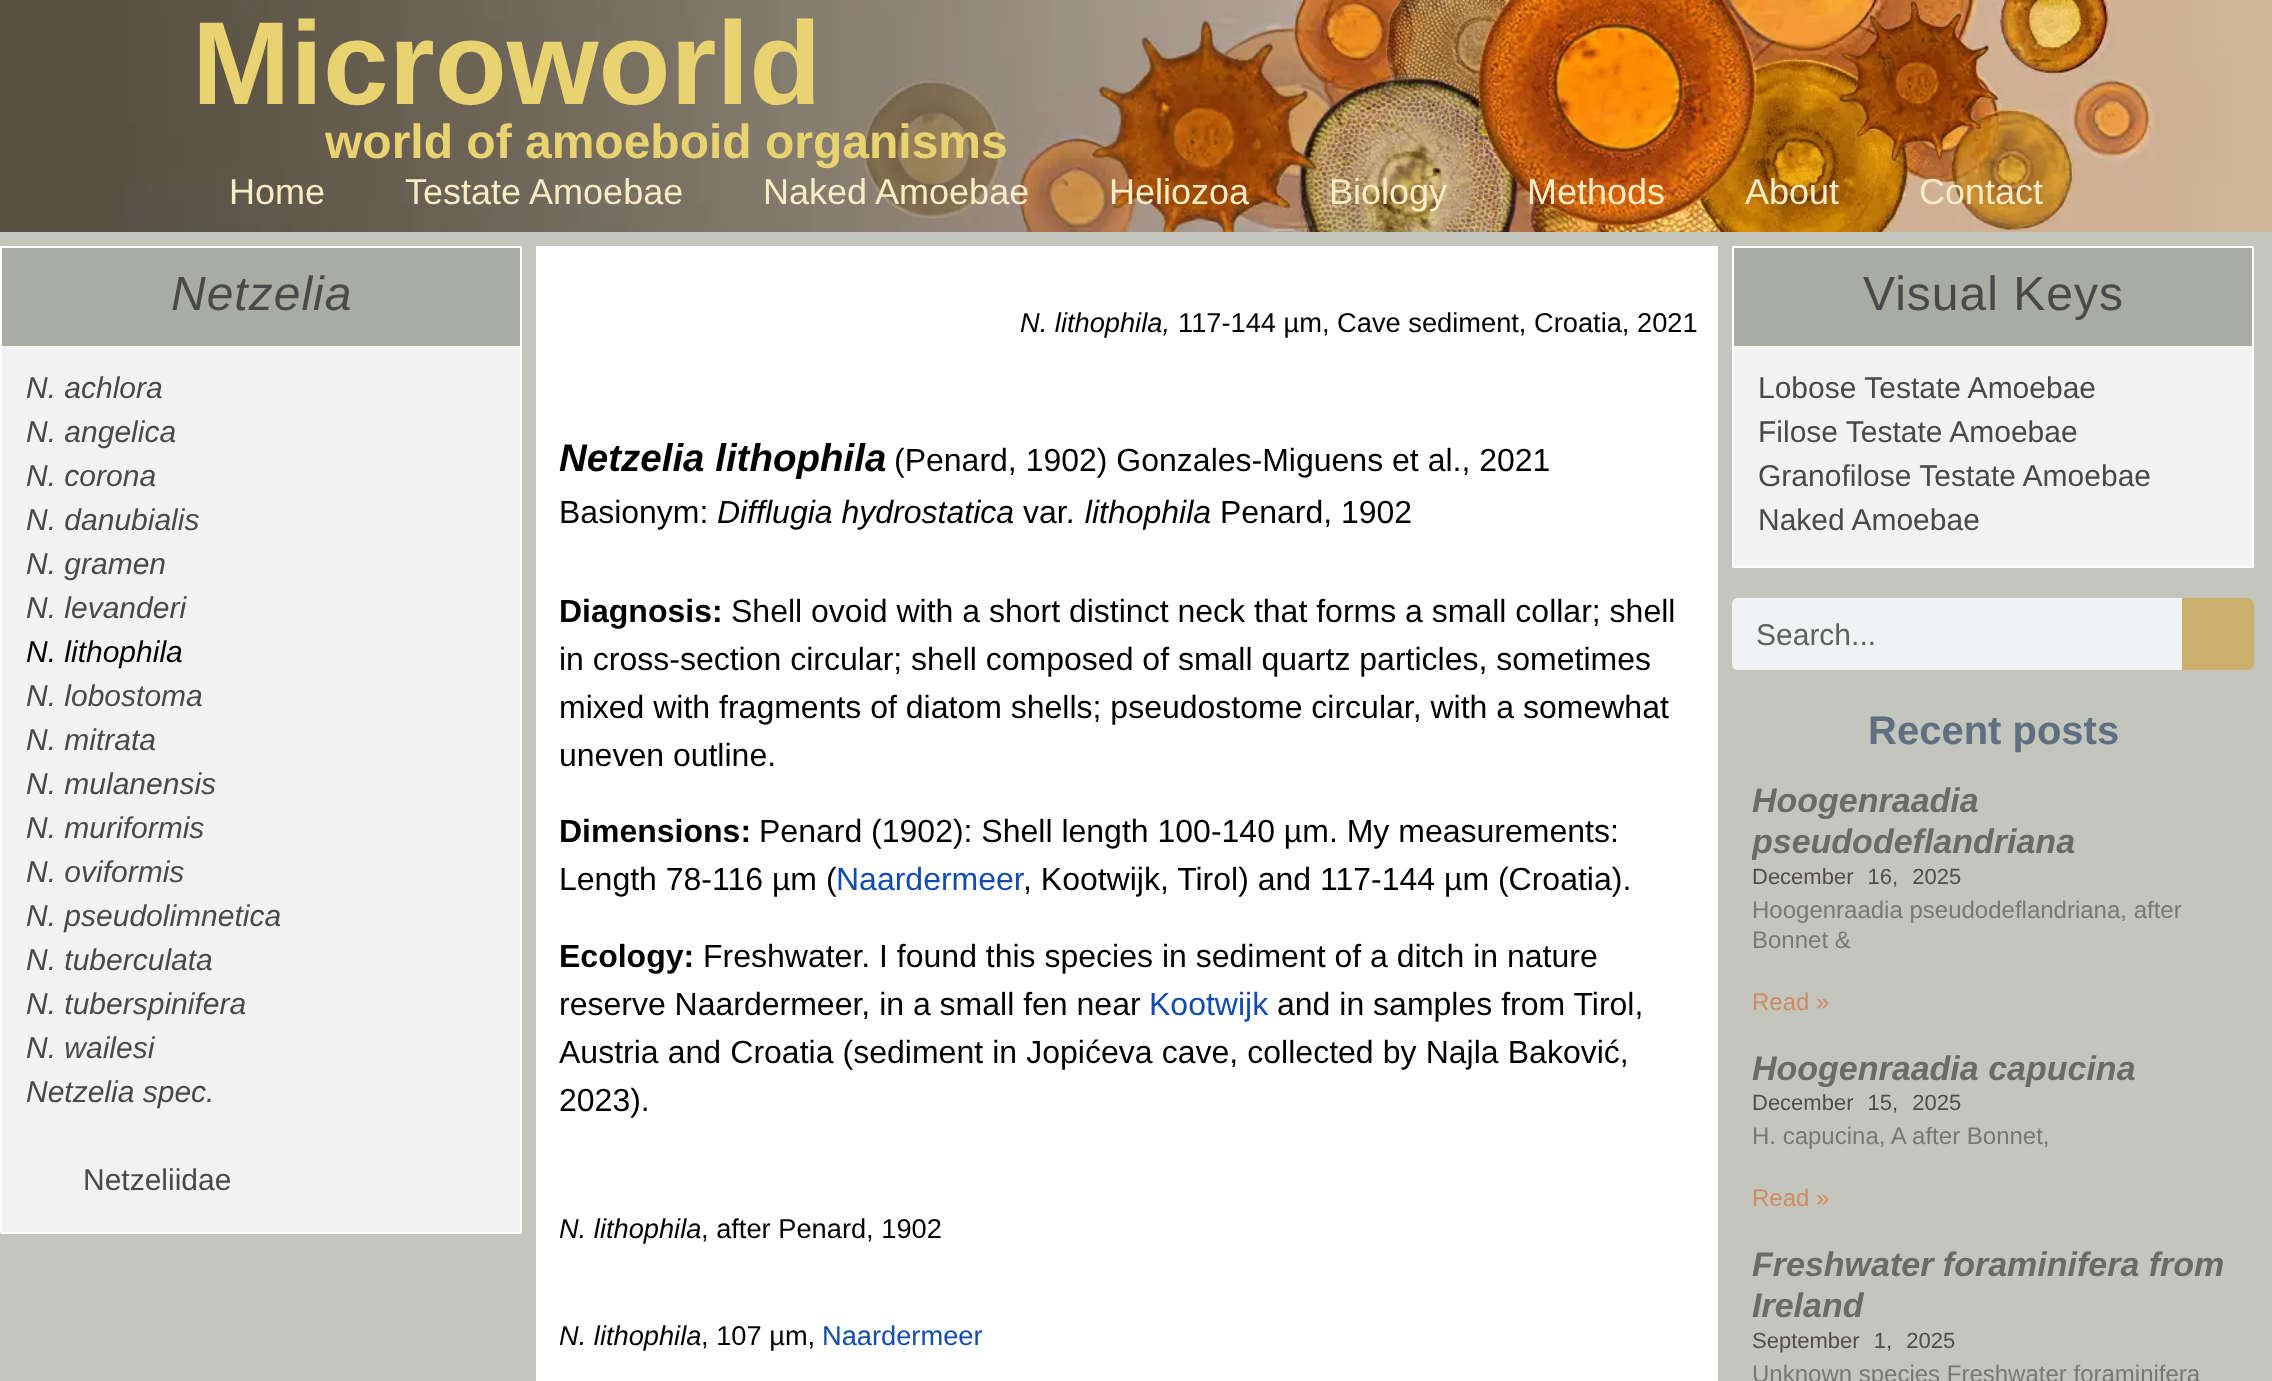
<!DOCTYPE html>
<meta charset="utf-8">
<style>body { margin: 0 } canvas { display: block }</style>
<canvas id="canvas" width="2272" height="1381"></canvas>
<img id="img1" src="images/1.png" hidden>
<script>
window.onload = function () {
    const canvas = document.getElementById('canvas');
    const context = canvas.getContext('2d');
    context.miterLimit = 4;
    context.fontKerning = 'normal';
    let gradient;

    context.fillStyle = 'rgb(196, 198, 190)';
    context.fillRect(0, 0, 2272, 1381);
    gradient = context.createLinearGradient(412, -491, 1860, 723);
    gradient.addColorStop(0.39, 'rgb(89, 79, 67)');
    gradient.addColorStop(0.57, 'rgb(207, 182, 152)');
    context.fillStyle = gradient;
    context.fillRect(0, 0, 2272, 232);
    context.drawImage(document.getElementById('img1'), 126, 0, 2106, 232);
    context.fillStyle = 'rgb(242, 242, 242)';
    context.fillRect(0, 246, 522, 2);
    context.beginPath();
    context.roundRect(1, 247, 520, 986, 1);
    context.fill();
    context.strokeStyle = 'rgb(255, 255, 255)';
    context.lineWidth = 2;
    context.stroke();
    context.fillStyle = 'rgb(169, 172, 162)';
    context.fillRect(2, 248, 518, 98);
    context.fillStyle = 'rgb(255, 255, 255)';
    context.fillRect(536, 246, 1182, 1135);
    context.fillStyle = 'rgb(242, 242, 242)';
    context.beginPath();
    context.roundRect(1733, 247, 520, 320, 1);
    context.fill();
    context.stroke();
    context.fillStyle = 'rgb(169, 172, 162)';
    context.fillRect(1734, 248, 518, 98);
    context.fillStyle = 'rgb(241, 242, 243)';
    context.beginPath();
    context.roundRect(1732, 598, 522, 72, 6);
    context.fill();
    context.fillStyle = 'rgba(194, 156, 69, 0.77)';
    context.beginPath();
    context.roundRect(2182, 598, 72, 72, [0, 6, 6, 0]);
    context.fill();
    context.font = 'bold 118px Liberation Sans';
    context.fillStyle = 'rgb(233, 211, 112)';
    context.fillText('Microworld', 192, 104);
    context.font = 'bold 48px Liberation Sans';
    context.fillText('world of amoeboid organisms', 325, 158);
    context.font = '36px Liberation Sans';
    context.fillStyle = 'rgb(247, 236, 195)';
    context.fillText('Home', 229, 204);
    context.fillText('Testate Amoebae', 405, 204);
    context.fillText('Naked Amoebae', 763, 204);
    context.fillText('Heliozoa', 1109, 204);
    context.fillText('Biology', 1329, 204);
    context.fillText('Methods', 1527, 204);
    context.fillText('About', 1745, 204);
    context.fillText('Contact', 1919, 204);
    context.letterSpacing = '1px';
    context.font = 'italic 48px Liberation Sans';
    context.fillStyle = 'rgb(73, 73, 73)';
    context.fillText('Netzelia', 171, 310);
    context.letterSpacing = '0px';
    context.font = 'italic 30px Liberation Sans';
    context.fillText('N. achlora', 26, 398);
    context.fillText('N. angelica', 26, 442);
    context.fillText('N. corona', 26, 486);
    context.fillText('N. danubialis', 26, 530);
    context.fillText('N. gramen', 26, 574);
    context.fillText('N. levanderi', 26, 618);
    context.fillStyle = 'rgb(2, 0, 0)';
    context.fillText('N. lithophila', 26, 662);
    context.fillStyle = 'rgb(73, 73, 73)';
    context.fillText('N. lobostoma', 26, 706);
    context.fillText('N. mitrata', 26, 750);
    context.fillText('N. mulanensis', 26, 794);
    context.fillText('N. muriformis', 26, 838);
    context.fillText('N. oviformis', 26, 882);
    context.fillText('N. pseudolimnetica', 26, 926);
    context.fillText('N. tuberculata', 26, 970);
    context.fillText('N. tuberspinifera', 26, 1014);
    context.fillText('N. wailesi', 26, 1058);
    context.fillText('Netzelia spec.', 26, 1102);
    context.font = '30px Liberation Sans';
    context.fillText('Netzeliidae', 83, 1190);
    context.font = 'italic 27.25px Liberation Sans';
    context.fillStyle = 'rgb(2, 0, 0)';
    context.fillText('N. lithophila,', 1020, 332);
    context.font = '27.25px Liberation Sans';
    context.fillText('117-144 µm, Cave sediment, Croatia, 2021', 1178, 332);
    context.font = 'italic bold 38.5px Liberation Sans';
    context.fillText('Netzelia lithophila', 559, 471);
    context.font = '32px Liberation Sans';
    context.fillText('(Penard, 1902) Gonzales-Miguens et al., 2021', 894, 471);
    context.fillText('Basionym:', 559, 523);
    context.font = 'italic 32px Liberation Sans';
    context.fillText('Difflugia hydrostatica', 717, 523);
    context.font = '32px Liberation Sans';
    context.fillText('var', 1023, 523);
    context.font = 'italic 32px Liberation Sans';
    context.fillText('. lithophila', 1067, 523);
    context.font = '32px Liberation Sans';
    context.fillText('Penard, 1902', 1220, 523);
    context.font = 'bold 32px Liberation Sans';
    context.fillText('Diagnosis:', 559, 622);
    context.font = '32px Liberation Sans';
    context.fillText('Shell ovoid with a short distinct neck that forms a small collar; shell', 731, 622);
    context.fillText('in cross-section circular; shell composed of small quartz particles, sometimes', 559, 670);
    context.fillText('mixed with fragments of diatom shells; pseudostome circular, with a somewhat', 559, 718);
    context.fillText('uneven outline.', 559, 766);
    context.font = 'bold 32px Liberation Sans';
    context.fillText('Dimensions:', 559, 842);
    context.font = '32px Liberation Sans';
    context.fillText('Penard (1902): Shell length 100-140 µm. My measurements:', 759, 842);
    context.fillText('Length 78-116 µm (', 559, 890);
    context.fillStyle = 'rgb(18, 76, 176)';
    context.fillText('Naardermeer', 836, 890);
    context.fillStyle = 'rgb(2, 0, 0)';
    context.fillText(', Kootwijk, Tirol) and 117-144 µm (Croatia).', 1023, 890);
    context.font = 'bold 32px Liberation Sans';
    context.fillText('Ecology:', 559, 967);
    context.font = '32px Liberation Sans';
    context.fillText('Freshwater. I found this species in sediment of a ditch in nature', 703, 967);
    context.fillText('reserve Naardermeer, in a small fen near', 559, 1015);
    context.fillStyle = 'rgb(18, 76, 176)';
    context.fillText('Kootwijk', 1149, 1015);
    context.fillStyle = 'rgb(2, 0, 0)';
    context.fillText('and in samples from Tirol,', 1277, 1015);
    context.wordSpacing = '0.25px';
    context.fillText('Austria and Croatia (sediment in Jopićeva cave, collected by Najla Baković,', 559, 1063);
    context.wordSpacing = '0px';
    context.fillText('2023).', 559, 1111);
    context.font = 'italic 27.25px Liberation Sans';
    context.fillText('N. lithophila', 559, 1238);
    context.font = '27.25px Liberation Sans';
    context.fillText(', after Penard, 1902', 701, 1238);
    context.font = 'italic 27.25px Liberation Sans';
    context.fillText('N. lithophila', 559, 1345);
    context.font = '27.25px Liberation Sans';
    context.fillText(', 107 µm,', 701, 1345);
    context.fillStyle = 'rgb(18, 76, 176)';
    context.fillText('Naardermeer', 822, 1345);
    context.letterSpacing = '1px';
    context.font = '48px Liberation Sans';
    context.fillStyle = 'rgb(73, 73, 73)';
    context.fillText('Visual Keys', 1863, 310);
    context.letterSpacing = '0px';
    context.font = '30px Liberation Sans';
    context.fillText('Lobose Testate Amoebae', 1758, 398);
    context.fillText('Filose Testate Amoebae', 1758, 442);
    context.fillText('Granofilose Testate Amoebae', 1758, 486);
    context.fillText('Naked Amoebae', 1758, 530);
    context.fillStyle = 'rgb(96, 97, 97)';
    context.fillText('Search...', 1756, 645);
    context.font = 'bold 40px Liberation Sans';
    context.fillStyle = 'rgb(93, 111, 128)';
    context.fillText('Recent posts', 1868, 744);
    context.font = 'italic bold 34px Liberation Sans';
    context.fillStyle = 'rgb(106, 107, 103)';
    context.fillText('Hoogenraadia', 1752, 812);
    context.save();
    context.beginPath();
    context.rect(1752, 782, 482, 242);
    context.clip();
    context.fillText('pseudodeflandriana', 1752, 853);
    context.restore();
    context.wordSpacing = '8px';
    context.font = '22px Liberation Sans';
    context.fillStyle = 'rgb(81, 75, 75)';
    context.fillText('December 16, 2025', 1752, 884);
    context.wordSpacing = '0px';
    context.font = '24px Liberation Sans';
    context.fillStyle = 'rgb(119, 119, 119)';
    context.fillText('Hoogenraadia pseudodeflandriana, after', 1752, 918);
    context.fillText('Bonnet &', 1752, 948);
    context.fillStyle = 'rgb(206, 139, 97)';
    context.fillText('Read »', 1752, 1010);
    context.font = 'italic bold 34px Liberation Sans';
    context.fillStyle = 'rgb(106, 107, 103)';
    context.fillText('Hoogenraadia capucina', 1752, 1080);
    context.wordSpacing = '8px';
    context.font = '22px Liberation Sans';
    context.fillStyle = 'rgb(81, 75, 75)';
    context.fillText('December 15, 2025', 1752, 1110);
    context.wordSpacing = '0px';
    context.font = '24px Liberation Sans';
    context.fillStyle = 'rgb(119, 119, 119)';
    context.fillText('H. capucina, A after Bonnet,', 1752, 1144);
    context.fillStyle = 'rgb(206, 139, 97)';
    context.fillText('Read »', 1752, 1206);
    context.font = 'italic bold 34px Liberation Sans';
    context.fillStyle = 'rgb(106, 107, 103)';
    context.fillText('Freshwater foraminifera from', 1752, 1276);
    context.fillText('Ireland', 1752, 1317);
    context.wordSpacing = '8px';
    context.font = '22px Liberation Sans';
    context.fillStyle = 'rgb(81, 75, 75)';
    context.fillText('September 1, 2025', 1752, 1348);
    context.wordSpacing = '0px';
    context.font = '24px Liberation Sans';
    context.fillStyle = 'rgb(119, 119, 119)';
    context.fillText('Unknown species Freshwater foraminifera', 1752, 1382);
};
</script>
